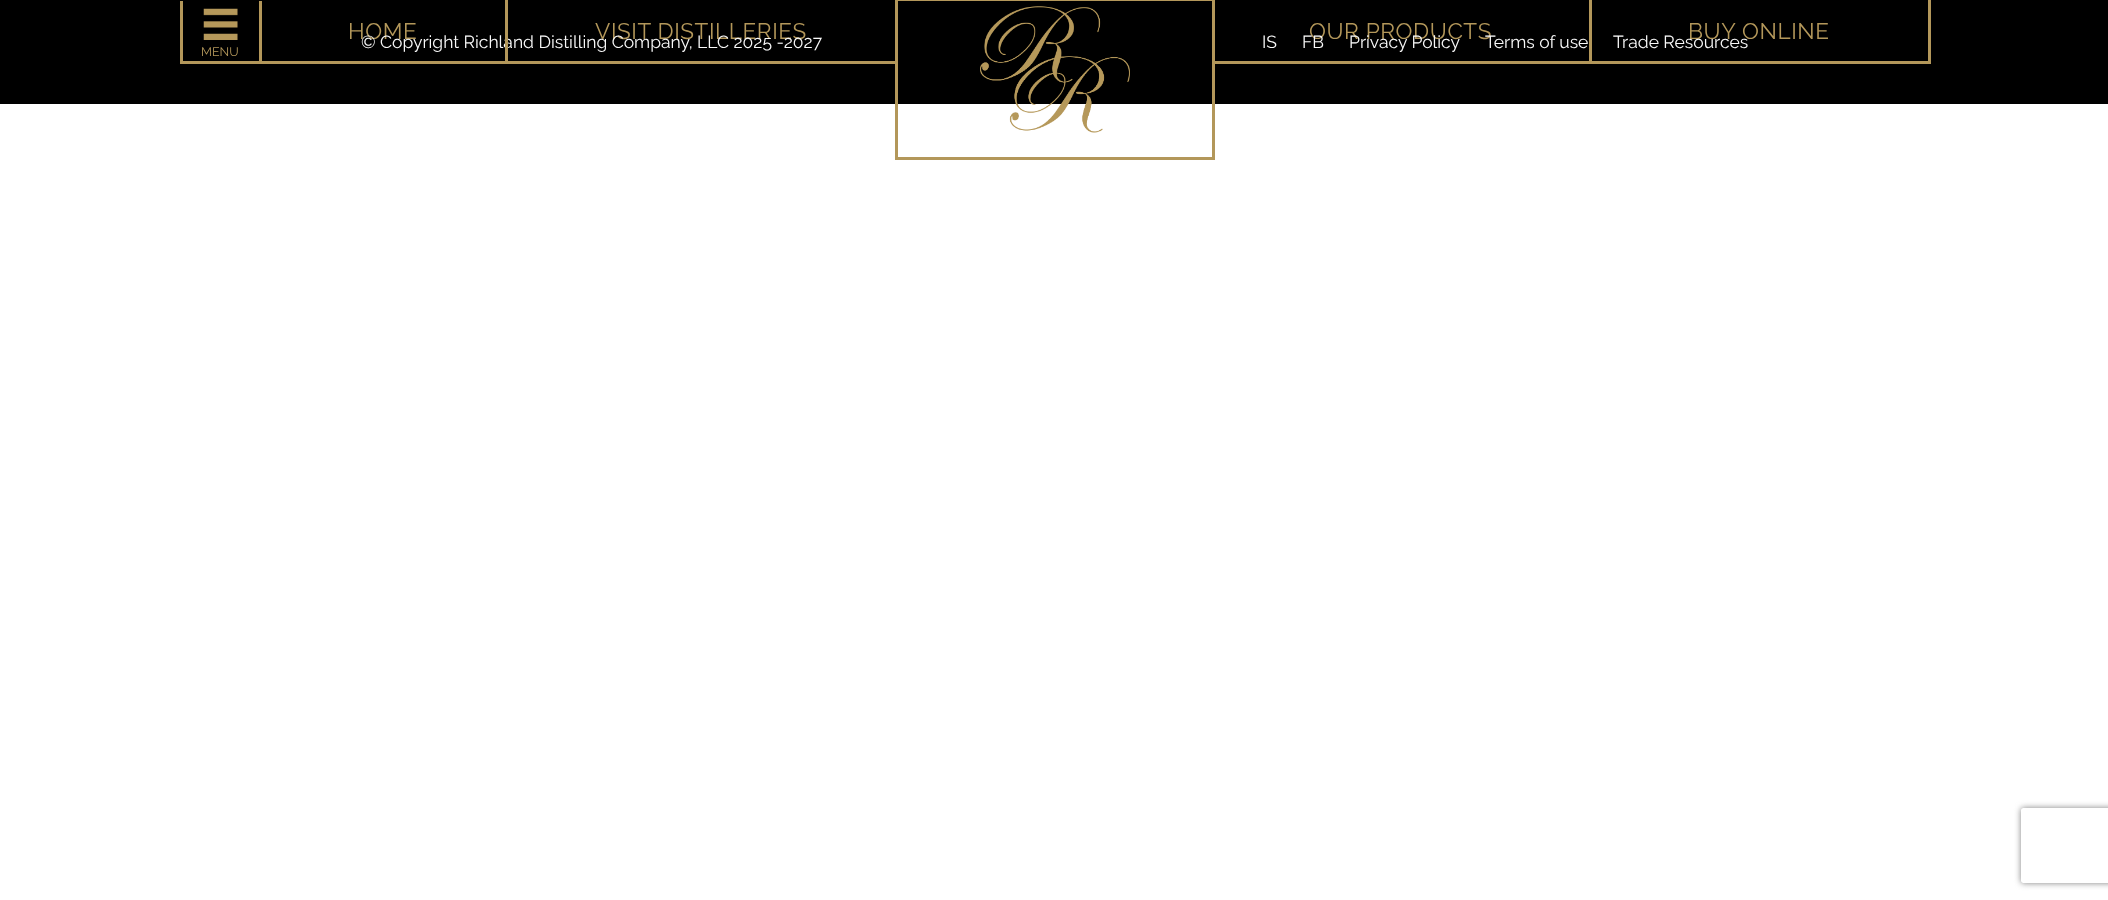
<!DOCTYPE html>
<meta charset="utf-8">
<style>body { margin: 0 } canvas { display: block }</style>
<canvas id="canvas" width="2108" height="900"></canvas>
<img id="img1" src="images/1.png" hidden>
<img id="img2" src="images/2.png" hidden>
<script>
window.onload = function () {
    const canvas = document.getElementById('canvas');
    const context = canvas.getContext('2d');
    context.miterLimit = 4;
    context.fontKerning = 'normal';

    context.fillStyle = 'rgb(255, 255, 255)';
    context.fillRect(0, 0, 2108, 900);
    context.fillStyle = 'rgb(0, 0, 0)';
    context.fillRect(0, 0, 2108, 104);
    context.drawImage(document.getElementById('img1'), 203, 8, 35, 32);
    context.fillStyle = 'rgb(179, 151, 90)';
    context.fillRect(259, 1, 3, 63);
    context.fillRect(180, 61, 81, 3);
    context.fillRect(180, 1, 3, 63);
    context.drawImage(document.getElementById('img2'), 980, 6, 150, 127);
    context.fillRect(1589, 0, 3, 64);
    context.fillRect(1928, 0, 3, 64);
    context.fillRect(1591, 61, 339, 3);
    context.save();
    context.beginPath();
    context.moveTo(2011, 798);
    context.lineTo(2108, 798);
    context.lineTo(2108, 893);
    context.lineTo(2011, 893);
    context.closePath();
    context.moveTo(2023.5, 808);
    context.lineTo(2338.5, 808);
    context.bezierCurveTo(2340, 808, 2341, 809, 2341, 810.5);
    context.lineTo(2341, 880.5);
    context.bezierCurveTo(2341, 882, 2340, 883, 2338.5, 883);
    context.lineTo(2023.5, 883);
    context.bezierCurveTo(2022, 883, 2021, 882, 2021, 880.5);
    context.lineTo(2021, 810.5);
    context.bezierCurveTo(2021, 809, 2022, 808, 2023.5, 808);
    context.closePath();
    context.clip('evenodd');
    context.fillStyle = 'rgb(128, 128, 128)';
    context.filter = 'blur(3px)';
    context.beginPath();
    context.roundRect(2021, 808, 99, 75, 2.5);
    context.fill();
    context.filter = 'none';
    context.restore();
    context.letterSpacing = '0.6px';
    context.font = '22.5px Raleway';
    context.fillText('HOME', 348, 39);
    context.fillText('VISIT DISTILLERIES', 595, 39);
    context.letterSpacing = '0px';
    context.font = '12.5px Raleway';
    context.fillText('MENU', 201, 56);
    context.letterSpacing = '0.6px';
    context.font = '22.5px Raleway';
    context.fillText('OUR PRODUCTS', 1309, 39);
    context.fillText('BUY ONLINE', 1688, 39);
    context.letterSpacing = '0px';
    context.font = '17.5px Raleway';
    context.fillStyle = 'rgb(249, 249, 249)';
    context.fillText('© Copyright Richland Distilling Company, LLC 2025 -2027', 361, 48);
    context.fillStyle = 'rgb(179, 151, 90)';
    context.fillRect(505, 0, 3, 64);
    context.fillRect(261, 61, 637, 3);
    context.strokeStyle = 'rgb(179, 151, 90)';
    context.lineWidth = 3;
    context.strokeRect(896.5, -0.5, 317, 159);
    context.fillRect(1213, 61, 378, 3);
    context.fillStyle = 'rgb(249, 249, 249)';
    context.fillText('IS', 1262, 48);
    context.fillText('FB', 1302, 48);
    context.fillText('Privacy Policy', 1349, 48);
    context.fillText('Terms of use', 1485, 48);
    context.fillText('Trade Resources', 1613, 48);
};
</script>
